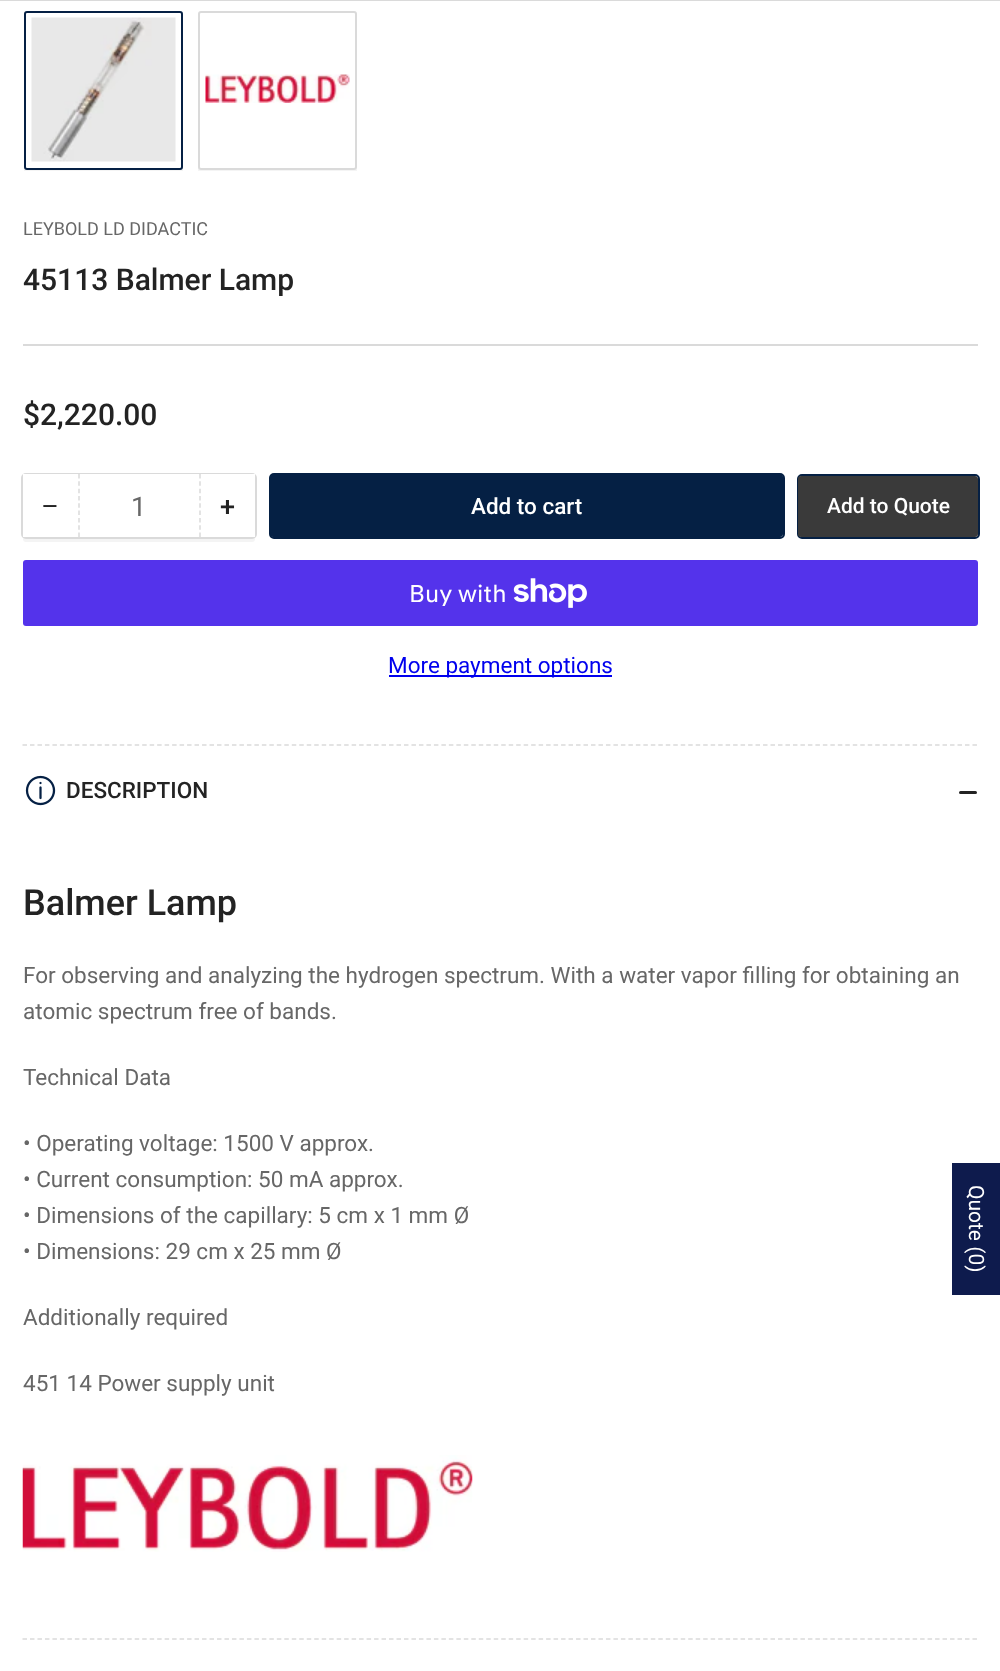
<!DOCTYPE html>
<meta charset="utf-8">
<style>body { margin: 0 } canvas { display: block }</style>
<canvas id="canvas" width="1000" height="1671"></canvas>
<img id="img1" src="images/1.png" hidden>
<img id="img2" src="images/2.png" hidden>
<img id="img3" src="images/3.png" hidden>
<img id="img4" src="images/4.png" hidden>
<img id="img5" src="images/5.png" hidden>
<script>
window.onload = function () {
    const canvas = document.getElementById('canvas');
    const context = canvas.getContext('2d');
    context.miterLimit = 4;
    context.fontKerning = 'normal';

    context.fillStyle = 'rgb(255, 255, 255)';
    context.fillRect(0, 0, 1000, 1671);
    context.fillStyle = 'rgb(218, 218, 218)';
    context.fillRect(0, 0, 1000, 1);
    context.save();
    context.beginPath();
    context.rect(23, 9, 955, 162);
    context.clip();
    context.fillStyle = 'rgb(244, 244, 244)';
    context.beginPath();
    context.moveTo(24, 166);
    context.lineTo(24, 171);
    context.bezierCurveTo(24, 173, 25, 174, 27, 174);
    context.lineTo(180, 174);
    context.bezierCurveTo(182, 174, 183, 173, 183, 171);
    context.lineTo(183, 166);
    context.bezierCurveTo(183, 168, 182, 170, 180, 170);
    context.lineTo(27, 170);
    context.bezierCurveTo(25, 170, 24, 168, 24, 166);
    context.closePath();
    context.fill();
    context.restore();
    context.fillStyle = 'rgb(255, 255, 255)';
    context.beginPath();
    context.roundRect(25, 12, 157, 157, 2);
    context.fill();
    context.strokeStyle = 'rgb(5, 32, 68)';
    context.lineWidth = 2;
    context.stroke();
    context.drawImage(document.getElementById('img1'), 31, 17, 145, 145);
    context.save();
    context.beginPath();
    context.rect(23, 9, 955, 162);
    context.clip();
    context.fillStyle = 'rgb(244, 244, 244)';
    context.beginPath();
    context.moveTo(198, 166);
    context.lineTo(198, 171);
    context.bezierCurveTo(198, 173, 199, 174, 201, 174);
    context.lineTo(354, 174);
    context.bezierCurveTo(356, 174, 357, 173, 357, 171);
    context.lineTo(357, 166);
    context.bezierCurveTo(357, 168, 356, 170, 354, 170);
    context.lineTo(201, 170);
    context.bezierCurveTo(199, 170, 198, 168, 198, 166);
    context.closePath();
    context.fill();
    context.restore();
    context.beginPath();
    context.roundRect(199, 12, 157, 157, 2);
    context.fill();
    context.strokeStyle = 'rgb(218, 218, 218)';
    context.stroke();
    context.drawImage(document.getElementById('img2'), 205, 74, 145, 29);
    context.fillStyle = 'rgb(218, 218, 218)';
    context.fillRect(23, 344, 955, 2);
    context.fillStyle = 'rgb(244, 244, 244)';
    context.beginPath();
    context.moveTo(23, 536);
    context.lineTo(23, 539);
    context.bezierCurveTo(23, 541, 24, 542, 26, 542);
    context.lineTo(252, 542);
    context.bezierCurveTo(254, 542, 255, 541, 255, 539);
    context.lineTo(255, 534);
    context.bezierCurveTo(255, 536, 254, 537, 252, 537);
    context.lineTo(26, 537);
    context.bezierCurveTo(24, 537, 24, 536, 23, 536);
    context.closePath();
    context.fill();
    context.beginPath();
    context.roundRect(22, 474, 234, 64, 4);
    context.stroke();
    context.fillStyle = 'rgb(255, 255, 255)';
    context.fillRect(78, 474, 123, 1);
    context.fillRect(23, 474, 55, 63);
    context.beginPath();
    context.moveTo(200, 474);
    context.lineTo(200, 537);
    context.lineWidth = 1.5;
    context.setLineDash([4.5, 2.82]);
    context.stroke();
    context.beginPath();
    context.moveTo(79, 474);
    context.lineTo(79, 537);
    context.stroke();
    context.fillRect(201, 474, 54, 63);
    context.beginPath();
    context.roundRect(270, 474, 514, 64, 4);
    context.strokeStyle = 'rgb(5, 32, 68)';
    context.lineWidth = 2;
    context.setLineDash([]);
    context.stroke();
    context.fillStyle = 'rgb(5, 32, 68)';
    context.beginPath();
    context.roundRect(270, 474, 513, 63, 3);
    context.fill();
    context.beginPath();
    context.roundRect(798, 475, 181, 63, 4);
    context.stroke();
    context.fillStyle = 'rgb(58, 58, 58)';
    context.beginPath();
    context.roundRect(798, 476, 180, 61, 3);
    context.fill();
    context.fillStyle = 'rgb(84, 51, 235)';
    context.beginPath();
    context.roundRect(23, 560, 955, 66, 3);
    context.fill();
    context.drawImage(document.getElementById('img3'), 513, 578, 74, 30);
    context.fillStyle = 'rgb(0, 0, 238)';
    context.fillRect(389, 675, 223, 2);
    context.beginPath();
    context.moveTo(22.5, 745);
    context.lineTo(978, 745);
    context.strokeStyle = 'rgb(218, 218, 218)';
    context.lineWidth = 1.5;
    context.setLineDash([4.5, 2.98]);
    context.stroke();
    context.beginPath();
    context.moveTo(22.5, 1639);
    context.lineTo(978, 1639);
    context.stroke();
    context.drawImage(document.getElementById('img4'), 25, 775, 31, 31);
    context.fillStyle = 'rgb(35, 35, 35)';
    context.beginPath();
    context.roundRect(959, 791, 10, 3, 1.5);
    context.fill();
    context.beginPath();
    context.roundRect(965, 791, 12, 3, 1.5);
    context.fill();
    context.drawImage(document.getElementById('img5'), 22, 1455, 451, 97);
    context.fillStyle = 'rgb(14, 27, 77)';
    context.fillRect(952, 1163, 48, 132);
    context.font = '18px Roboto';
    context.fillStyle = 'rgb(103, 103, 103)';
    context.fillText('LEYBOLD LD DIDACTIC', 23, 235);
    context.font = '500 30px Roboto';
    context.fillStyle = 'rgb(35, 35, 35)';
    context.fillText('45113 Balmer Lamp', 23, 290);
    context.fillText('$2,220.00', 23, 425);
    context.font = '27px Liberation Sans';
    context.fillText('−', 42, 515);
    context.font = '27px Roboto';
    context.fillStyle = 'rgb(103, 103, 103)';
    context.fillText('1', 131, 516);
    context.font = '500 27px Roboto';
    context.fillStyle = 'rgb(35, 35, 35)';
    context.fillText('+', 220, 516);
    context.font = '500 22.5px Roboto';
    context.fillStyle = 'rgb(255, 255, 255)';
    context.fillText('Add to cart', 471, 514);
    context.font = '500 21px Roboto';
    context.fillText('Add to Quote', 827, 513);
    context.font = '24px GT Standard';
    context.fillText('Buy with', 409, 602);
    context.font = '22.5px Roboto';
    context.fillStyle = 'rgb(0, 0, 238)';
    context.fillText('More payment options', 388, 673);
    context.font = '500 22.5px Roboto';
    context.fillStyle = 'rgb(35, 35, 35)';
    context.fillText('DESCRIPTION', 66, 798);
    context.font = '500 36px Roboto';
    context.fillText('Balmer Lamp', 23, 915);
    context.font = '22.5px Roboto';
    context.fillStyle = 'rgb(103, 103, 103)';
    context.fillText('For observing and analyzing the hydrogen spectrum. With a water vapor filling for obtaining an', 23, 983);
    context.fillText('atomic spectrum free of bands.', 23, 1019);
    context.fillText('Technical Data', 23, 1085);
    context.fillText('• Operating voltage: 1500 V approx.', 23, 1151);
    context.fillText('• Current consumption: 50 mA approx.', 23, 1187);
    context.fillText('• Dimensions of the capillary: 5 cm x 1 mm Ø', 23, 1223);
    context.fillText('• Dimensions: 29 cm x 25 mm Ø', 23, 1259);
    context.fillText('Additionally required', 23, 1325);
    context.fillText('451 14 Power supply unit', 23, 1391);
    context.font = '21px Roboto';
    context.fillStyle = 'rgb(255, 255, 255)';
    context.save();
    context.translate(969, 1185);
    context.rotate(90 * Math.PI / 180);
    context.fillText('Quote (0)', 0, 0);
    context.restore();
};
</script>
